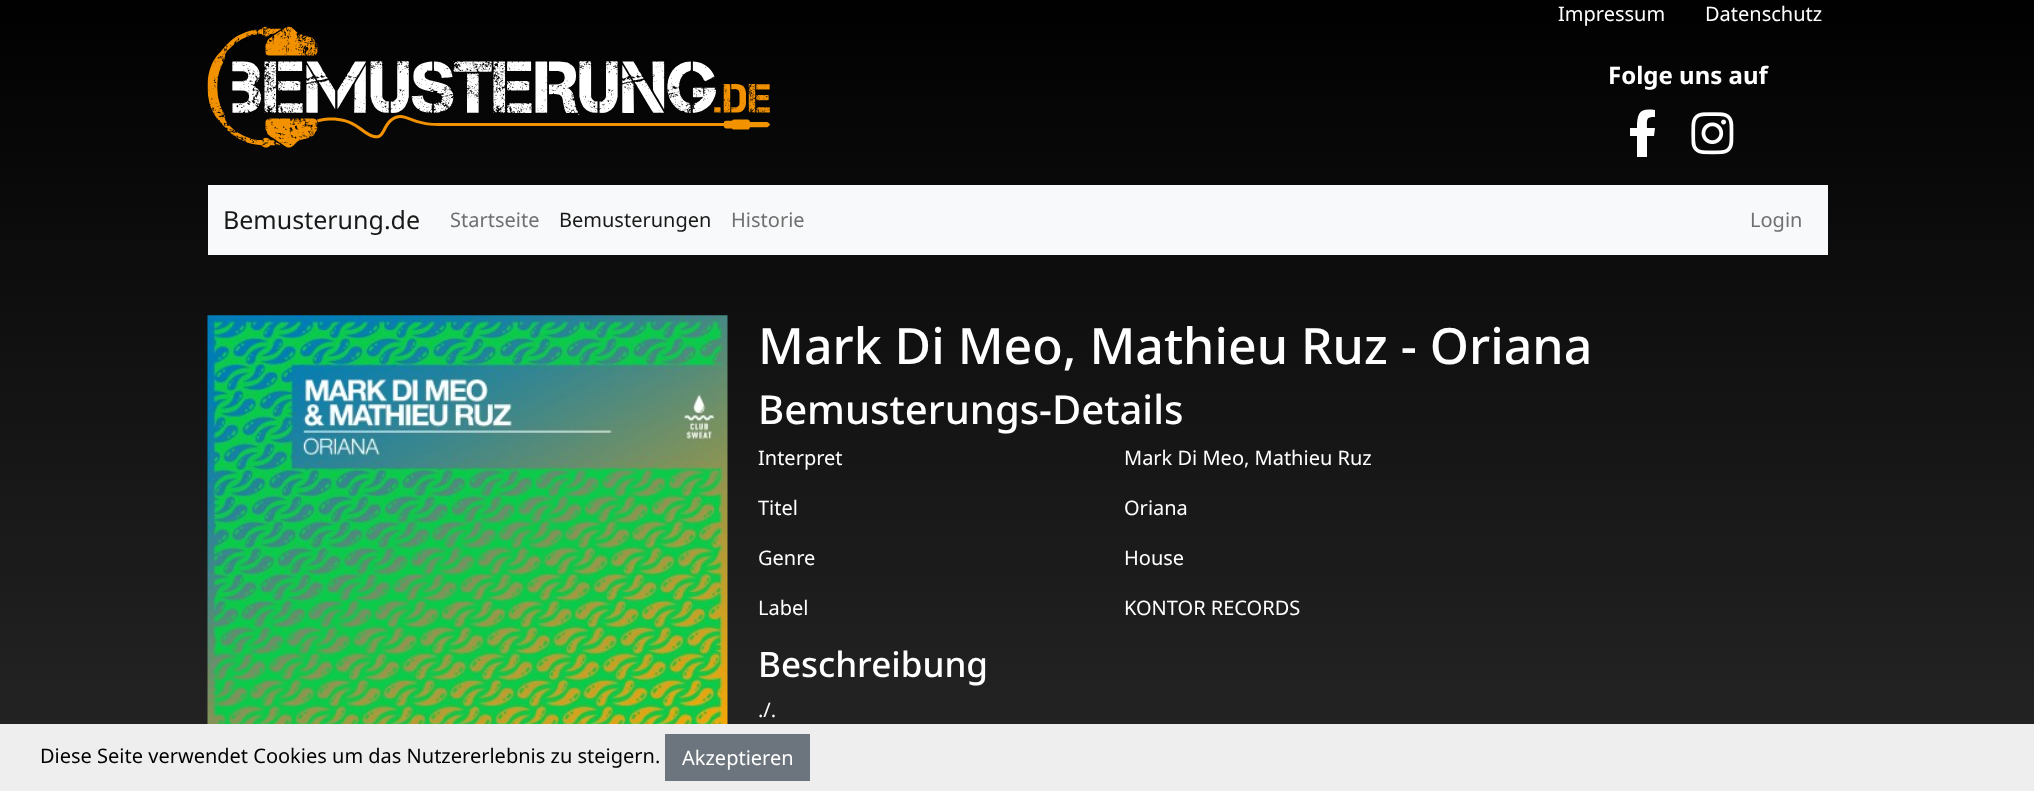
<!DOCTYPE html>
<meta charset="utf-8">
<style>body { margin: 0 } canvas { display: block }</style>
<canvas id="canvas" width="2034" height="791"></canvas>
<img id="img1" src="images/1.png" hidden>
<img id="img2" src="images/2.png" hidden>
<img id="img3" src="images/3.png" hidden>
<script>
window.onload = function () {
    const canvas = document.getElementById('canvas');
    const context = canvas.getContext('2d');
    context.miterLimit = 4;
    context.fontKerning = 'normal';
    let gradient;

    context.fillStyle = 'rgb(255, 255, 255)';
    context.fillRect(0, 0, 2034, 791);
    gradient = context.createLinearGradient(1018, -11, 1018, 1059);
    gradient.addColorStop(0, 'rgb(0, 0, 0)');
    gradient.addColorStop(1, 'rgb(51, 51, 51)');
    context.fillStyle = gradient;
    context.fillRect(0, 0, 2034, 724);
    context.drawImage(document.getElementById('img1'), 207, 26, 563, 122);
    context.fillStyle = 'rgb(255, 255, 255)';
    context.beginPath();
    context.moveTo(1654, 136);
    context.lineTo(1647, 136);
    context.lineTo(1647, 157);
    context.lineTo(1637, 157);
    context.lineTo(1637, 136);
    context.lineTo(1630, 136);
    context.lineTo(1630, 128);
    context.lineTo(1637, 128);
    context.bezierCurveTo(1637, 112, 1640, 108, 1655, 110);
    context.lineTo(1655, 117);
    context.bezierCurveTo(1646, 117, 1647, 119, 1647, 128);
    context.lineTo(1655, 128);
    context.closePath();
    context.fill();
    context.drawImage(document.getElementById('img2'), 1691, 112, 43, 43);
    context.fillStyle = 'rgb(248, 249, 250)';
    context.fillRect(208, 185, 1620, 70);
    context.drawImage(document.getElementById('img3'), 207, 315, 521, 409);
    context.fillStyle = 'rgb(238, 238, 238)';
    context.fillRect(0, 724, 2034, 67);
    context.fillStyle = 'rgb(108, 117, 125)';
    context.fillRect(665, 734, 145, 47);
    context.font = '20px Noto Sans';
    context.fillStyle = 'rgb(255, 255, 255)';
    context.fillText('Impressum', 1558, 21);
    context.fillText('Datenschutz', 1705, 21);
    context.font = 'bold 24px Noto Sans';
    context.fillText('Folge uns auf', 1608, 84);
    context.font = '25px Noto Sans';
    context.fillStyle = 'rgb(25, 25, 25)';
    context.fillText('Bemusterung.de', 223, 229);
    context.font = '20px Noto Sans';
    context.fillStyle = 'rgb(112, 112, 113)';
    context.fillText('Startseite', 450, 227);
    context.fillStyle = 'rgb(25, 25, 25)';
    context.fillText('Bemusterungen', 559, 227);
    context.fillStyle = 'rgb(112, 112, 113)';
    context.fillText('Historie', 731, 227);
    context.fillText('Login', 1750, 227);
    context.font = '500 50px Noto Sans';
    context.fillStyle = 'rgb(255, 255, 255)';
    context.fillText('Mark Di Meo, Mathieu Ruz - Oriana', 758, 364);
    context.font = '500 40px Noto Sans';
    context.fillText('Bemusterungs-Details', 758, 424);
    context.font = '20px Noto Sans';
    context.fillText('Interpret', 758, 465);
    context.fillText('Mark Di Meo, Mathieu Ruz', 1124, 465);
    context.fillText('Titel', 758, 515);
    context.fillText('Oriana', 1124, 515);
    context.fillText('Genre', 758, 565);
    context.fillText('House', 1124, 565);
    context.fillText('Label', 758, 615);
    context.fillText('KONTOR RECORDS', 1124, 615);
    context.font = '500 35px Noto Sans';
    context.fillText('Beschreibung', 758, 677);
    context.font = '20px Noto Sans';
    context.fillText('./.', 758, 717);
    context.fillStyle = 'rgb(0, 0, 0)';
    context.fillText('Diese Seite verwendet Cookies um das Nutzererlebnis zu steigern.', 40, 763);
    context.fillStyle = 'rgb(255, 255, 255)';
    context.fillText('Akzeptieren', 682, 765);
};
</script>
